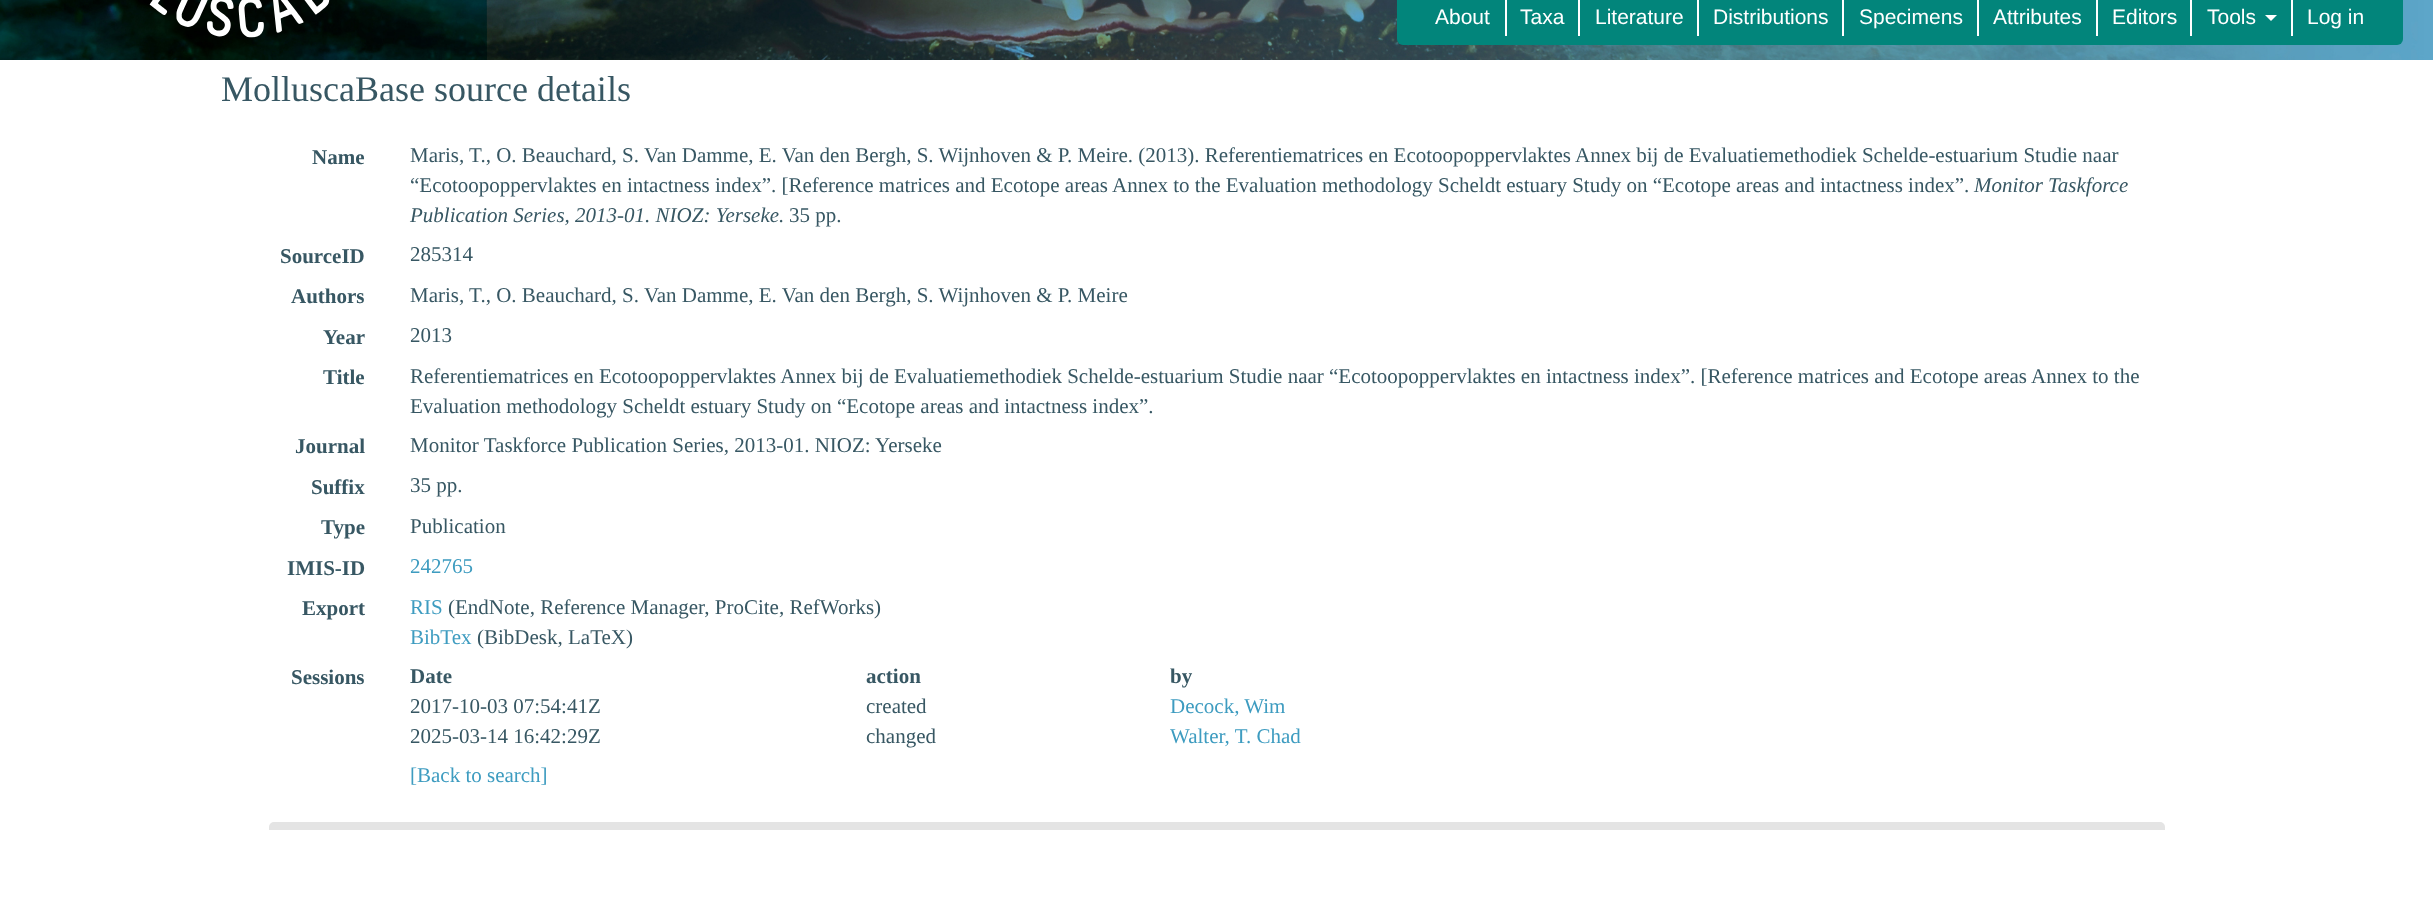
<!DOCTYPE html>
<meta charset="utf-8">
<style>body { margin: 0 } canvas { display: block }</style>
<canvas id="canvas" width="2433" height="900"></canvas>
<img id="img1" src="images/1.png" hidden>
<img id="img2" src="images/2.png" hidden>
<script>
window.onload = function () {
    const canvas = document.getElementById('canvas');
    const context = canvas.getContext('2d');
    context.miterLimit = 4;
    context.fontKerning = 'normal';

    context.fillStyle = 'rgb(255, 255, 255)';
    context.fillRect(0, 0, 2433, 900);
    context.drawImage(document.getElementById('img1'), 0, 0, 2433, 60);
    context.drawImage(document.getElementById('img2'), 149, 0, 181, 38);
    context.fillStyle = 'rgb(2, 133, 123)';
    context.beginPath();
    context.roundRect(1397, -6, 1006, 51, 6);
    context.fill();
    context.fillStyle = 'rgb(255, 255, 255)';
    context.fillRect(1505, 0, 2, 36);
    context.fillRect(1578, 0, 2, 36);
    context.fillRect(1697, 0, 2, 36);
    context.fillRect(1842, 0, 2, 36);
    context.fillRect(1977, 0, 2, 36);
    context.fillRect(2096, 0, 2, 36);
    context.fillRect(2190, 0, 2, 36);
    context.beginPath();
    context.moveTo(2265, 15);
    context.lineTo(2277, 15);
    context.lineTo(2271, 21);
    context.closePath();
    context.fill();
    context.fillRect(2291, 0, 2, 36);
    context.fillStyle = 'rgb(228, 228, 228)';
    context.beginPath();
    context.roundRect(269, 822, 1896, 8, [5, 5, 0, 0]);
    context.fill();
    context.font = '21px Liberation Sans';
    context.fillStyle = 'rgb(255, 255, 255)';
    context.fillText('About', 1435, 24);
    context.fillText('Taxa', 1520, 24);
    context.fillText('Literature', 1595, 24);
    context.fillText('Distributions', 1713, 24);
    context.fillText('Specimens', 1859, 24);
    context.fillText('Attributes', 1993, 24);
    context.fillText('Editors', 2112, 24);
    context.fillText('Tools', 2207, 24);
    context.fillText('Log in', 2307, 24);
    context.font = '36px Liberation Serif';
    context.fillStyle = 'rgb(55, 87, 99)';
    context.fillText('MolluscaBase source details', 221, 101);
    context.font = 'bold 21px Liberation Serif';
    context.fillText('Name', 312, 164);
    context.font = '21px Liberation Serif';
    context.fillText('Maris, T., O. Beauchard, S. Van Damme, E. Van den Bergh, S. Wijnhoven & P. Meire. (2013). Referentiematrices en Ecotoopoppervlaktes Annex bij de Evaluatiemethodiek Schelde-estuarium Studie naar', 410, 162);
    context.fillText('“Ecotoopoppervlaktes en intactness index”. [Reference matrices and Ecotope areas Annex to the Evaluation methodology Scheldt estuary Study on “Ecotope areas and intactness index”.', 410, 192);
    context.font = 'italic 21px Liberation Serif';
    context.fillText('Monitor Taskforce', 1974, 192);
    context.fillText('Publication Series, 2013-01. NIOZ: Yerseke.', 410, 222);
    context.font = '21px Liberation Serif';
    context.fillText('35 pp.', 789, 222);
    context.font = 'bold 21px Liberation Serif';
    context.fillText('SourceID', 280, 263);
    context.font = '21px Liberation Serif';
    context.fillText('285314', 410, 261);
    context.font = 'bold 21px Liberation Serif';
    context.fillText('Authors', 291, 303);
    context.font = '21px Liberation Serif';
    context.fillText('Maris, T., O. Beauchard, S. Van Damme, E. Van den Bergh, S. Wijnhoven & P. Meire', 410, 302);
    context.font = 'bold 21px Liberation Serif';
    context.fillText('Year', 323, 344);
    context.font = '21px Liberation Serif';
    context.fillText('2013', 410, 342);
    context.font = 'bold 21px Liberation Serif';
    context.fillText('Title', 323, 384);
    context.font = '21px Liberation Serif';
    context.fillText('Referentiematrices en Ecotoopoppervlaktes Annex bij de Evaluatiemethodiek Schelde-estuarium Studie naar “Ecotoopoppervlaktes en intactness index”. [Reference matrices and Ecotope areas Annex to the', 410, 383);
    context.fillText('Evaluation methodology Scheldt estuary Study on “Ecotope areas and intactness index”.', 410, 413);
    context.font = 'bold 21px Liberation Serif';
    context.fillText('Journal', 295, 453);
    context.font = '21px Liberation Serif';
    context.fillText('Monitor Taskforce Publication Series, 2013-01. NIOZ: Yerseke', 410, 452);
    context.font = 'bold 21px Liberation Serif';
    context.fillText('Suffix', 311, 494);
    context.font = '21px Liberation Serif';
    context.fillText('35 pp.', 410, 492);
    context.font = 'bold 21px Liberation Serif';
    context.fillText('Type', 321, 534);
    context.font = '21px Liberation Serif';
    context.fillText('Publication', 410, 533);
    context.font = 'bold 21px Liberation Serif';
    context.fillText('IMIS-ID', 287, 575);
    context.font = '21px Liberation Serif';
    context.fillStyle = 'rgb(62, 156, 192)';
    context.fillText('242765', 410, 573);
    context.font = 'bold 21px Liberation Serif';
    context.fillStyle = 'rgb(55, 87, 99)';
    context.fillText('Export', 302, 615);
    context.font = '21px Liberation Serif';
    context.fillStyle = 'rgb(62, 156, 192)';
    context.fillText('RIS', 410, 614);
    context.fillStyle = 'rgb(55, 87, 99)';
    context.fillText('(EndNote, Reference Manager, ProCite, RefWorks)', 448, 614);
    context.fillStyle = 'rgb(62, 156, 192)';
    context.fillText('BibTex', 410, 644);
    context.fillStyle = 'rgb(55, 87, 99)';
    context.fillText('(BibDesk, LaTeX)', 477, 644);
    context.font = 'bold 21px Liberation Serif';
    context.fillText('Sessions', 291, 684);
    context.fillText('Date', 410, 683);
    context.fillText('action', 866, 683);
    context.fillText('by', 1170, 683);
    context.font = '21px Liberation Serif';
    context.fillText('2017-10-03 07:54:41Z', 410, 713);
    context.fillText('created', 866, 713);
    context.fillStyle = 'rgb(62, 156, 192)';
    context.fillText('Decock, Wim', 1170, 713);
    context.fillStyle = 'rgb(55, 87, 99)';
    context.fillText('2025-03-14 16:42:29Z', 410, 743);
    context.fillText('changed', 866, 743);
    context.fillStyle = 'rgb(62, 156, 192)';
    context.fillText('Walter, T. Chad', 1170, 743);
    context.fillText('[Back to search]', 410, 782);
};
</script>
